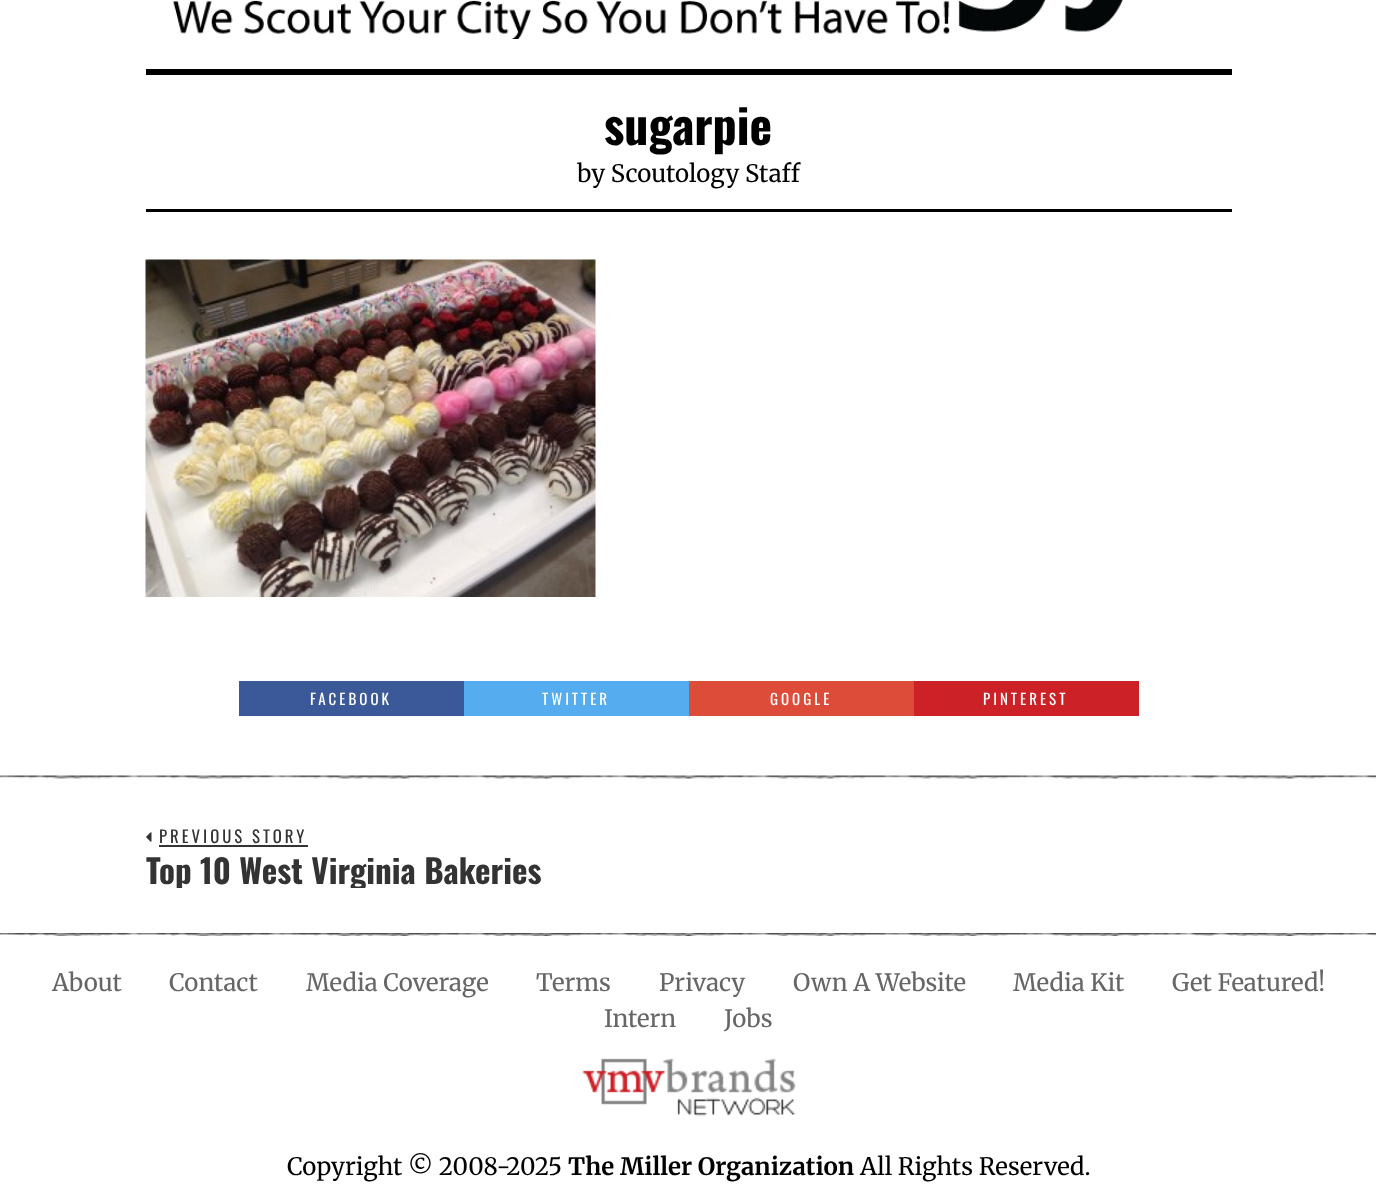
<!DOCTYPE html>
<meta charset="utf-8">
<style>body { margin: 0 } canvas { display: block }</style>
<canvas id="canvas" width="1376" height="1197"></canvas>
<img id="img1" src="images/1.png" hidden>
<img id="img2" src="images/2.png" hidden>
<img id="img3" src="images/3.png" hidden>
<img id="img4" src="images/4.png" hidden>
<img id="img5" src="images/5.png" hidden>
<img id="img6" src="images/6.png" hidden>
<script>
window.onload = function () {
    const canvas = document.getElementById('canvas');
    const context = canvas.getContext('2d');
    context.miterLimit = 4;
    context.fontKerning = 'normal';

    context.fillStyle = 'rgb(255, 255, 255)';
    context.fillRect(0, 0, 1376, 1197);
    context.drawImage(document.getElementById('img1'), 172, 0, 951, 39);
    context.fillStyle = 'rgb(0, 0, 0)';
    context.fillRect(146, 69, 1086, 6);
    context.fillRect(146, 209, 1086, 3);
    context.drawImage(document.getElementById('img2'), 145, 259, 451, 338);
    context.fillStyle = 'rgb(59, 89, 152)';
    context.fillRect(239, 681, 225, 35);
    context.fillStyle = 'rgb(85, 172, 238)';
    context.fillRect(464, 681, 225, 35);
    context.fillStyle = 'rgb(221, 75, 57)';
    context.fillRect(689, 681, 225, 35);
    context.fillStyle = 'rgb(204, 33, 39)';
    context.fillRect(914, 681, 225, 35);
    context.drawImage(document.getElementById('img3'), 0, 775, 1376, 4);
    context.drawImage(document.getElementById('img4'), 146, 832, 6, 10);
    context.fillStyle = 'rgb(51, 51, 51)';
    context.fillRect(159, 845, 149, 2);
    context.drawImage(document.getElementById('img5'), 0, 933, 1376, 3);
    context.drawImage(document.getElementById('img6'), 582, 1058, 214, 59);
    context.font = 'bold 48px Oswald';
    context.fillStyle = 'rgb(0, 0, 0)';
    context.fillText('sugarpie', 604, 145);
    context.font = '24px Merriweather';
    context.fillText('by Scoutology Staff', 577, 182);
    context.letterSpacing = '3px';
    context.font = '15px Oswald';
    context.fillStyle = 'rgb(255, 255, 255)';
    context.fillText('FACEBOOK', 310, 705);
    context.fillText('TWITTER', 542, 705);
    context.fillText('GOOGLE', 770, 705);
    context.fillText('PINTEREST', 983, 705);
    context.font = '16.75px Oswald';
    context.fillStyle = 'rgb(51, 51, 51)';
    context.fillText('PREVIOUS STORY', 159, 843);
    context.save();
    context.beginPath();
    context.rect(146, 824, 1086, 64);
    context.clip();
    context.letterSpacing = '0px';
    context.font = 'bold 33px Oswald';
    context.fillText('Top 10 West Virginia Bakeries', 146, 884);
    context.restore();
    context.letterSpacing = '0px';
    context.font = '24px Merriweather';
    context.fillStyle = 'rgb(102, 102, 102)';
    context.fillText('About', 52, 991);
    context.fillText('Contact', 169, 991);
    context.fillText('Media Coverage', 306, 991);
    context.fillText('Terms', 536, 991);
    context.fillText('Privacy', 659, 991);
    context.fillText('Own A Website', 793, 991);
    context.fillText('Media Kit', 1013, 991);
    context.fillText('Get Featured!', 1172, 991);
    context.fillText('Intern', 604, 1027);
    context.fillText('Jobs', 724, 1027);
    context.fillStyle = 'rgb(0, 0, 0)';
    context.fillText('Copyright © 2008-2025', 287, 1175);
    context.font = 'bold 24px Merriweather';
    context.fillText('The Miller Organization', 568, 1175);
    context.font = '24px Merriweather';
    context.fillText('All Rights Reserved.', 860, 1175);
};
</script>
